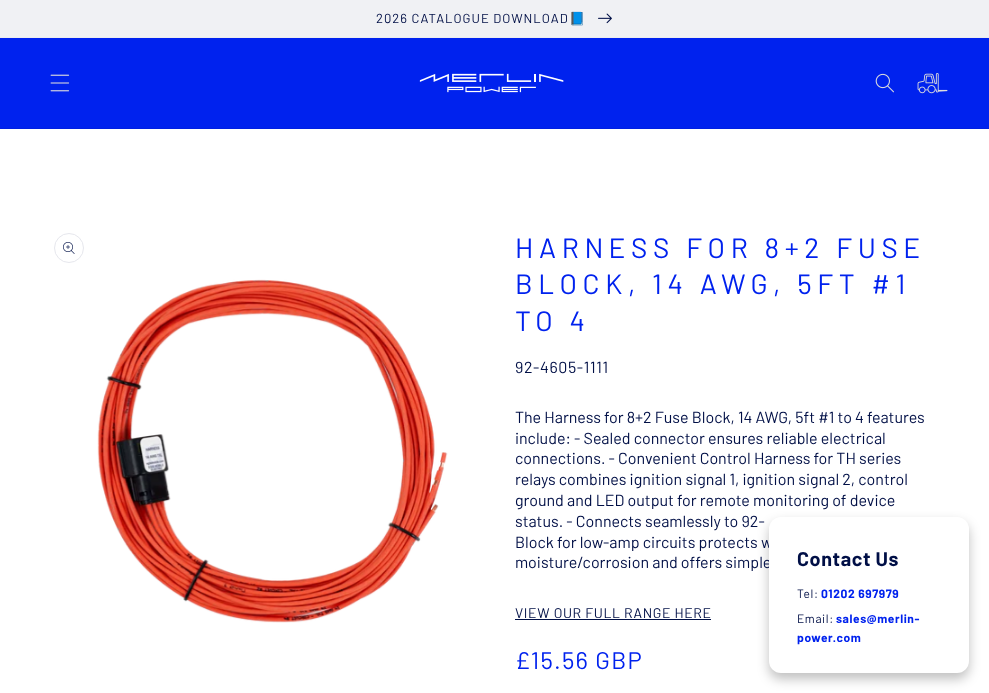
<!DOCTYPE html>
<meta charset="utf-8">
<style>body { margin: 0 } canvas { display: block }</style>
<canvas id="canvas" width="989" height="693"></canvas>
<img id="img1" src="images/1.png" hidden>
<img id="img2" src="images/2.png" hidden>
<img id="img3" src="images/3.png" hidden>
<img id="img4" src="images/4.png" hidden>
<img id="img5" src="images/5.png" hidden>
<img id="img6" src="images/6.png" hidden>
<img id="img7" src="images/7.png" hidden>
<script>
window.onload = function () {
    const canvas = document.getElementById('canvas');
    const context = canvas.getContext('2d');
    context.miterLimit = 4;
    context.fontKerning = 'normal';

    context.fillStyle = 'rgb(255, 255, 255)';
    context.fillRect(0, 0, 989, 693);
    context.fillStyle = 'rgb(235, 236, 240)';
    context.fillRect(0, 37, 989, 1);
    context.fillStyle = 'rgb(240, 241, 244)';
    context.fillRect(0, 0, 989, 37);
    context.drawImage(document.getElementById('img1'), 598, 13, 14, 11);
    context.fillStyle = 'rgb(0, 34, 238)';
    context.fillRect(0, 38, 989, 90);
    context.fillStyle = 'rgb(0, 32, 225)';
    context.fillRect(0, 128, 989, 1);
    context.drawImage(document.getElementById('img2'), 50, 74, 20, 18);
    context.drawImage(document.getElementById('img3'), 419, 73, 145, 20);
    context.drawImage(document.getElementById('img4'), 875, 73, 19, 20);
    context.drawImage(document.getElementById('img5'), 917, 73, 31, 21);
    context.beginPath();
    context.arc(69, 248, 14.5, 0, 2 * Math.PI);
    context.strokeStyle = 'rgb(230, 231, 237)';
    context.stroke();
    context.drawImage(document.getElementById('img6'), 63, 242, 12, 12);
    context.drawImage(document.getElementById('img7'), 97, 279, 351, 344);
    context.fillStyle = 'rgb(0, 15, 70)';
    context.fillRect(515, 619, 196, 1);
    context.fillStyle = 'rgba(0, 0, 0, 0.25)';
    context.filter = 'blur(6px)';
    context.beginPath();
    context.roundRect(769, 523, 200, 156, 12);
    context.fill();
    context.filter = 'none';
    context.letterSpacing = '1px';
    context.font = '13px Barlow';
    context.fillStyle = 'rgb(0, 15, 70)';
    context.fillText('2026 CATALOGUE DOWNLOAD', 376, 23);
    context.font = '13px Noto Color Emoji';
    context.fillText('📘', 569, 23);
    context.letterSpacing = '5.6px';
    context.font = '28px Barlow';
    context.fillStyle = 'rgb(0, 34, 238)';
    context.fillText('HARNESS FOR 8+2 FUSE', 515, 258);
    context.fillText('BLOCK, 14 AWG, 5FT #1', 515, 294);
    context.fillText('TO 4', 515, 331);
    context.letterSpacing = '0.6px';
    context.font = '16px Barlow';
    context.fillStyle = 'rgb(0, 15, 70)';
    context.fillText('92-4605-1111', 515, 373);
    context.letterSpacing = '0px';
    context.fillText('The Harness for 8+2 Fuse Block, 14 AWG, 5ft #1 to 4 features', 515, 423);
    context.fillText('include: - Sealed connector ensures reliable electrical', 515, 444);
    context.fillText('connections. - Convenient Control Harness for TH series', 515, 464);
    context.fillText('relays combines ignition signal 1, ignition signal 2, control', 515, 485);
    context.fillText('ground and LED output for remote monitoring of device', 515, 506);
    context.fillText('status. - Connects seamlessly to 92-', 515, 527);
    context.fillText('Block for low-amp circuits protects w', 515, 548);
    context.fillText('moisture/corrosion and offers simple', 515, 568);
    context.letterSpacing = '0.6px';
    context.font = '14px Barlow';
    context.fillText('VIEW OUR FULL RANGE HERE', 515, 618);
    context.letterSpacing = '1.25px';
    context.font = '24px Barlow';
    context.fillStyle = 'rgb(0, 34, 238)';
    context.fillText('£15.56 GBP', 515, 669);
    context.fillStyle = 'rgb(255, 255, 255)';
    context.beginPath();
    context.roundRect(769, 517, 200, 156, 12);
    context.fill();
    context.letterSpacing = '0.6px';
    context.font = 'bold 19.75px Barlow';
    context.fillStyle = 'rgb(0, 15, 70)';
    context.fillText('Contact Us', 797, 566);
    context.font = '12px Barlow';
    context.fillText('Tel:', 797, 598);
    context.font = 'bold 12px Barlow';
    context.fillStyle = 'rgb(0, 34, 238)';
    context.fillText('01202 697979', 821, 598);
    context.font = '12px Barlow';
    context.fillStyle = 'rgb(0, 15, 70)';
    context.fillText('Email:', 797, 623);
    context.font = 'bold 12px Barlow';
    context.fillStyle = 'rgb(0, 34, 238)';
    context.fillText('sales@merlin-', 836, 623);
    context.fillText('power.com', 797, 642);
};
</script>
